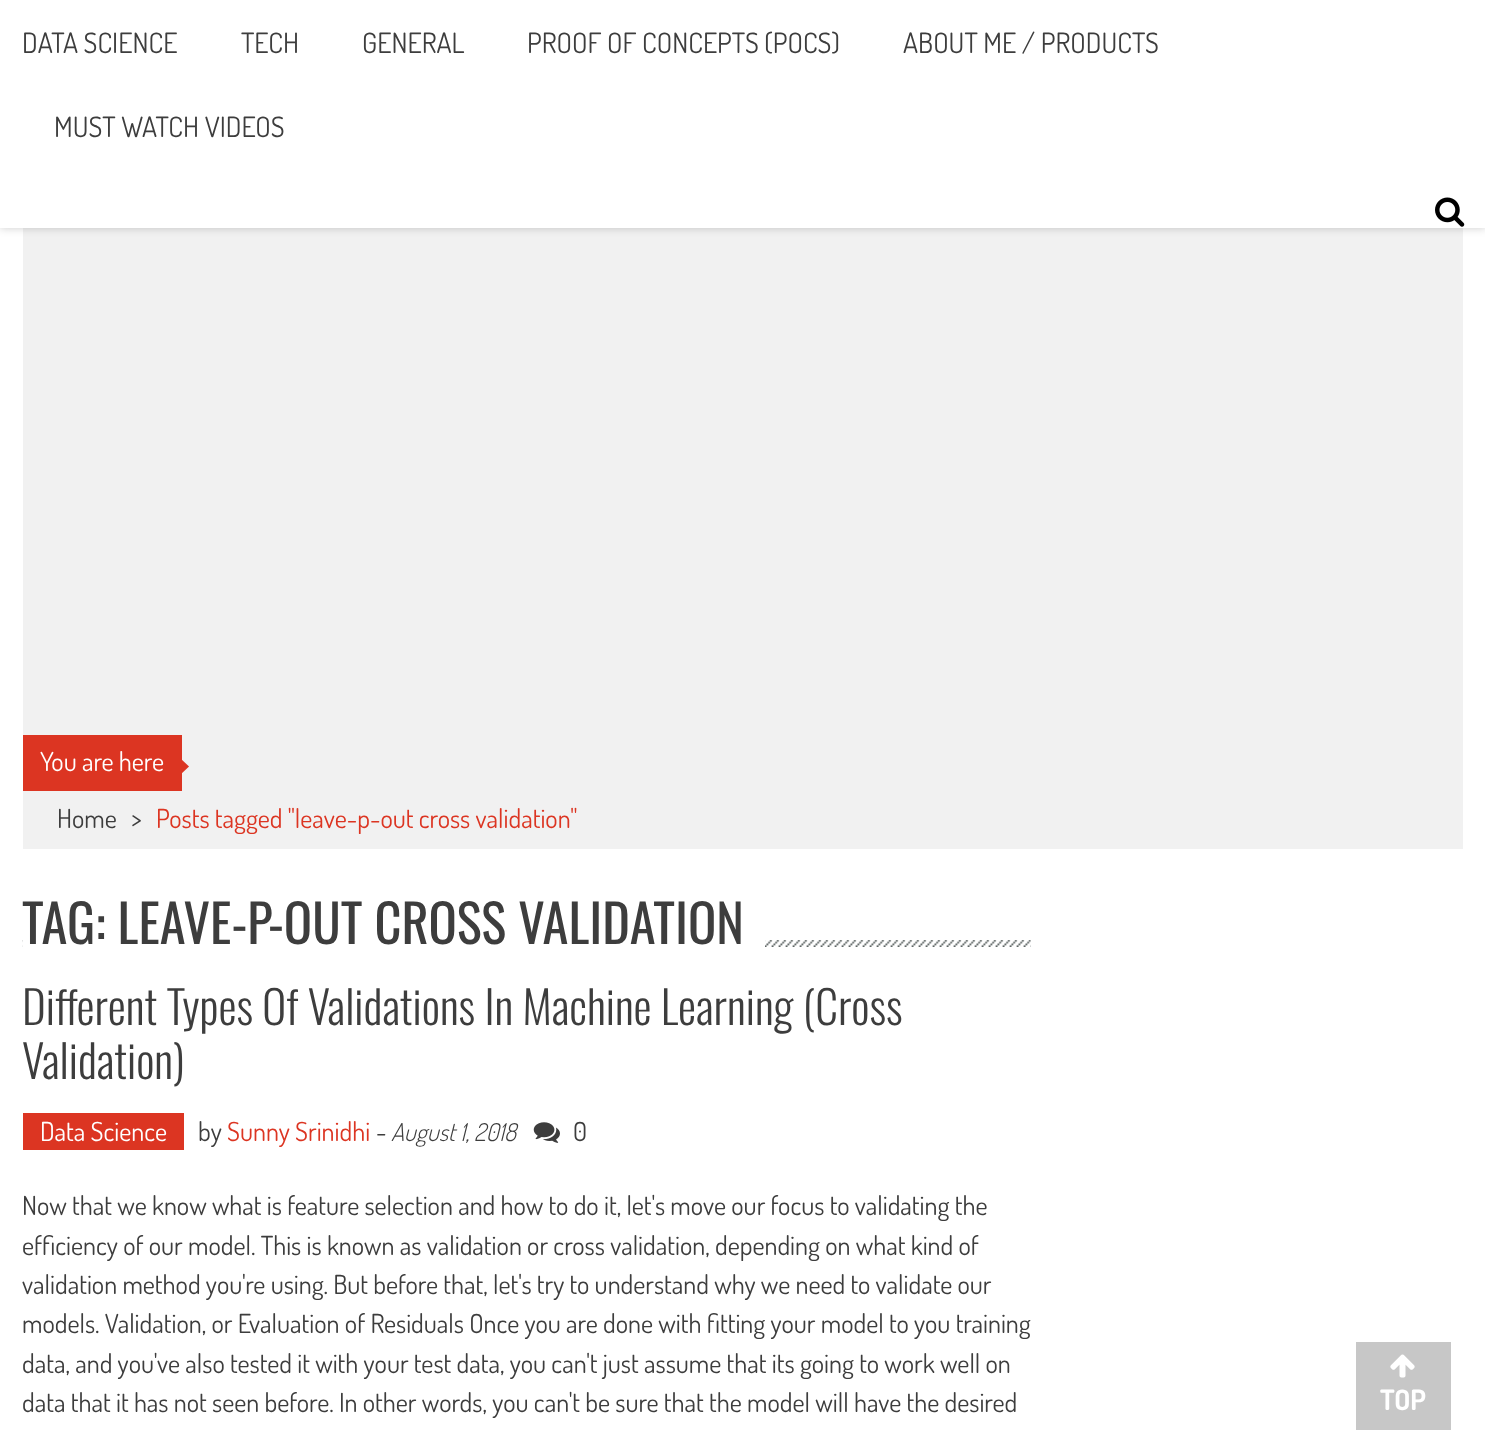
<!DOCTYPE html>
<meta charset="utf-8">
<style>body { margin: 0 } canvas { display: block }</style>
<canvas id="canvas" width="1485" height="1437"></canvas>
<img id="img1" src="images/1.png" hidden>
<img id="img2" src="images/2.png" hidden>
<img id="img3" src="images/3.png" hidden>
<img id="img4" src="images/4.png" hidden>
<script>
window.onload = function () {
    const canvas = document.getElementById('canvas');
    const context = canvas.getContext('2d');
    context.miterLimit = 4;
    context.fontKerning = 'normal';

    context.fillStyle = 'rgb(255, 255, 255)';
    context.fillRect(0, 0, 1485, 1437);
    context.fillStyle = 'rgb(241, 241, 241)';
    context.fillRect(23, 228, 1440, 621);
    context.fillStyle = 'rgba(0, 0, 0, 0.2)';
    context.filter = 'blur(4.5px)';
    context.beginPath();
    context.rect(0, 0, 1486, 228);
    context.fill();
    context.filter = 'none';
    context.fillStyle = 'rgb(255, 255, 255)';
    context.fillRect(0, 0, 1485, 228);
    context.drawImage(document.getElementById('img1'), 1435, 197, 30, 30);
    context.fillStyle = 'rgb(220, 53, 34)';
    context.fillRect(23, 735, 159, 56);
    context.beginPath();
    context.moveTo(180, 775);
    context.lineTo(180, 758);
    context.lineTo(189, 766.5);
    context.closePath();
    context.fill();
    context.drawImage(document.getElementById('img2'), 22, 940, 1009, 7);
    context.fillStyle = 'rgb(255, 255, 255)';
    context.fillRect(23, 940, 742, 7);
    context.fillStyle = 'rgb(220, 53, 34)';
    context.fillRect(23, 1113, 161, 37);
    context.drawImage(document.getElementById('img3'), 533, 1122, 27, 21);
    context.fillStyle = 'rgb(199, 199, 199)';
    context.fillRect(1356, 1342, 95, 88);
    context.drawImage(document.getElementById('img4'), 1390, 1354, 25, 24);
    context.font = '28px Dosis';
    context.fillStyle = 'rgb(61, 61, 61)';
    context.fillText('DATA SCIENCE', 22, 53);
    context.fillText('TECH', 241, 53);
    context.fillText('GENERAL', 362, 53);
    context.fillText('PROOF OF CONCEPTS (POCS)', 527, 53);
    context.fillText('ABOUT ME / PRODUCTS', 903, 53);
    context.fillText('MUST WATCH VIDEOS', 54, 137);
    context.font = '26.25px Dosis';
    context.fillStyle = 'rgb(255, 255, 255)';
    context.fillText('You are here', 40, 771);
    context.fillStyle = 'rgb(61, 61, 61)';
    context.fillText('Home', 57, 828);
    context.fillText('>', 131, 828);
    context.fillStyle = 'rgb(220, 53, 34)';
    context.fillText('Posts tagged "leave-p-out cross validation"', 156, 828);
    context.font = '52.5px Oswald';
    context.fillStyle = 'rgb(61, 61, 61)';
    context.fillText('TAG: LEAVE-P-OUT CROSS VALIDATION', 22, 944);
    context.font = '300 45.5px Oswald';
    context.fillText('Different Types Of Validations In Machine Learning (Cross', 22, 1025);
    context.fillText('Validation)', 22, 1079);
    context.font = '26.25px Dosis';
    context.fillStyle = 'rgb(255, 255, 255)';
    context.fillText('Data Science', 40, 1141);
    context.fillStyle = 'rgb(61, 61, 61)';
    context.fillText('by', 198, 1141);
    context.fillStyle = 'rgb(220, 53, 34)';
    context.fillText('Sunny Srinidhi', 227, 1141);
    context.fillStyle = 'rgb(61, 61, 61)';
    context.fillText('-', 376, 1141);
    context.font = 'italic 300 24.5px Dosis';
    context.fillText('August 1, 2018', 391, 1141);
    context.font = '26.25px Dosis';
    context.fillText('0', 573, 1141);
    context.fillText('Now that we know what is feature selection and how to do it, let\'s move our focus to validating the', 22, 1215);
    context.fillText('efficiency of our model. This is known as validation or cross validation, depending on what kind of', 22, 1255);
    context.fillText('validation method you\'re using. But before that, let\'s try to understand why we need to validate our', 22, 1294);
    context.fillText('models. Validation, or Evaluation of Residuals Once you are done with fitting your model to you training', 22, 1333);
    context.fillText('data, and you\'ve also tested it with your test data, you can\'t just assume that its going to work well on', 22, 1373);
    context.fillText('data that it has not seen before. In other words, you can\'t be sure that the model will have the desired', 22, 1412);
    context.font = 'bold 28px Dosis';
    context.fillStyle = 'rgb(255, 255, 255)';
    context.fillText('TOP', 1380, 1410);
};
</script>
